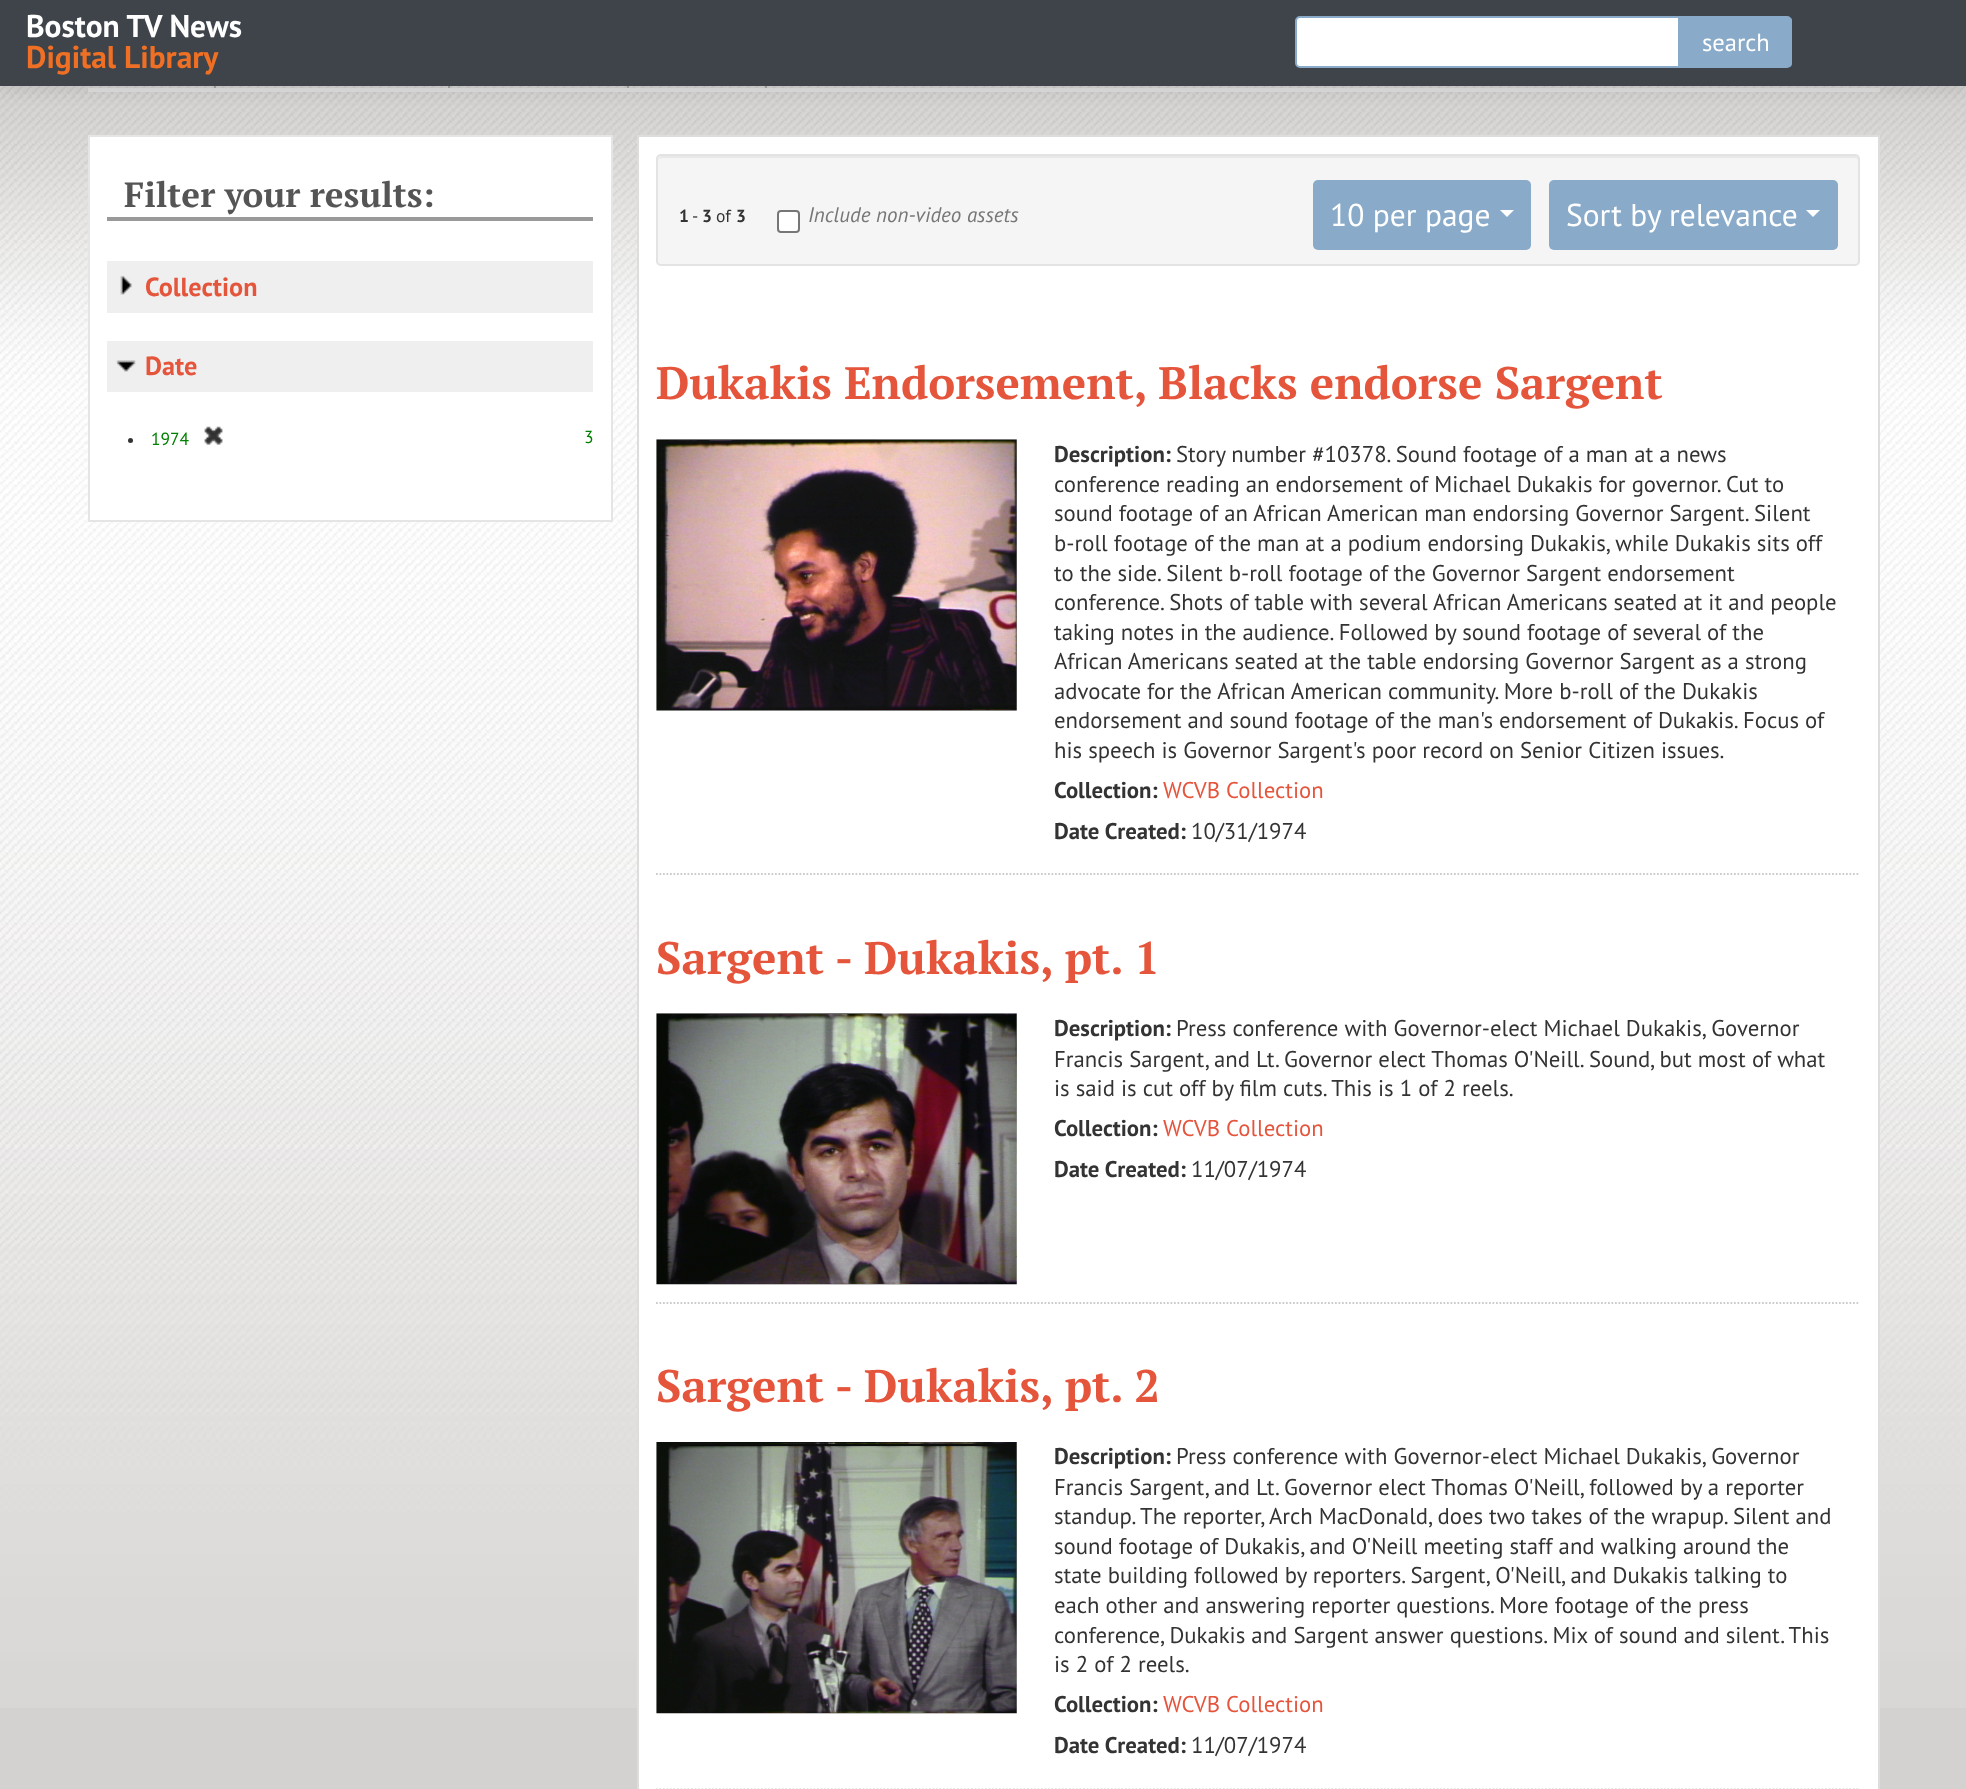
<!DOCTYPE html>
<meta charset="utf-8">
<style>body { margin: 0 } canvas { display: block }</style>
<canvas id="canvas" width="1966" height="1789"></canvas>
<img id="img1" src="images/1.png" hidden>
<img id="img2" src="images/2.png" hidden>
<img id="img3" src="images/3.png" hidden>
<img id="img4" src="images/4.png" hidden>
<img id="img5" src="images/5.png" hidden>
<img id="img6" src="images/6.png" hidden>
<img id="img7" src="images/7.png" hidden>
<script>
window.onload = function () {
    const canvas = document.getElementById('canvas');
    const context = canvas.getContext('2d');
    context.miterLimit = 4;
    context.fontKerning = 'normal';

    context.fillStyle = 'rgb(211, 210, 208)';
    context.fillRect(0, 0, 1966, 1789);
    context.drawImage(document.getElementById('img1'), 0, 86, 1966, 1622);
    context.fillStyle = 'rgb(221, 221, 221)';
    context.fillRect(88, 88, 1792, 4);
    context.fillStyle = 'rgb(162, 162, 162)';
    context.fillRect(214, 86, 2, 2);
    context.fillRect(448, 86, 2, 2);
    context.fillRect(627, 86, 2, 2);
    context.fillRect(765, 86, 2, 2);
    context.fillStyle = 'rgba(0, 0, 0, 0.1)';
    context.filter = 'blur(9px)';
    context.beginPath();
    context.rect(0, 2, 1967, 86);
    context.fill();
    context.filter = 'none';
    context.fillStyle = 'rgb(62, 68, 74)';
    context.fillRect(0, 0, 1966, 86);
    context.save();
    context.beginPath();
    context.roundRect(1678, 16, 114, 52, [0, 5, 5, 0]);
    context.clip();
    context.fillStyle = 'rgb(137, 171, 201)';
    context.fillRect(1680, 18, 112, 49);
    context.restore();
    context.beginPath();
    context.roundRect(1679, 17, 112, 50, [0, 4, 4, 0]);
    context.strokeStyle = 'rgb(137, 171, 201)';
    context.lineWidth = 2;
    context.stroke();
    context.fillStyle = 'rgb(255, 255, 255)';
    context.beginPath();
    context.roundRect(1296, 17, 383, 50, [4, 0, 0, 4]);
    context.fill();
    context.stroke();
    context.beginPath();
    context.rect(89, 136, 523, 385);
    context.fill();
    context.strokeStyle = 'rgb(229, 229, 229)';
    context.stroke();
    context.fillStyle = 'rgb(153, 153, 153)';
    context.fillRect(107, 217, 486, 4);
    context.fillStyle = 'rgb(239, 239, 239)';
    context.fillRect(107, 261, 486, 52);
    context.drawImage(document.getElementById('img2'), 120, 275, 12, 20);
    context.fillRect(107, 341, 486, 51);
    context.drawImage(document.getElementById('img3'), 116, 360, 20, 12);
    context.drawImage(document.getElementById('img4'), 204, 426, 19, 19);
    context.fillStyle = 'rgb(51, 51, 51)';
    context.beginPath();
    context.arc(130.5, 440.5, 2.5, 0, 2 * Math.PI);
    context.fill();
    context.fillStyle = 'rgb(255, 255, 255)';
    context.beginPath();
    context.rect(638, 136, 1241, 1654);
    context.fill();
    context.strokeStyle = 'rgb(221, 221, 221)';
    context.stroke();
    context.fillStyle = 'rgb(245, 245, 245)';
    context.beginPath();
    context.roundRect(656, 154, 1204, 112, 5);
    context.fill();
    context.fillStyle = 'rgb(233, 233, 233)';
    context.beginPath();
    context.moveTo(662, 158);
    context.lineTo(1855, 158);
    context.bezierCurveTo(1857, 158, 1858, 159, 1858, 161);
    context.lineTo(1858, 263);
    context.bezierCurveTo(1859, 262, 1859, 261, 1859, 260);
    context.lineTo(1859, 160);
    context.bezierCurveTo(1859, 158, 1857, 156, 1855, 156);
    context.lineTo(662, 156);
    context.bezierCurveTo(660, 156, 658, 158, 658, 160);
    context.lineTo(658, 161);
    context.bezierCurveTo(658, 159, 660, 158, 662, 158);
    context.closePath();
    context.fill();
    context.beginPath();
    context.roundRect(657, 155, 1202, 110, 4);
    context.strokeStyle = 'rgb(227, 227, 227)';
    context.stroke();
    context.fillStyle = 'rgb(255, 255, 255)';
    context.beginPath();
    context.roundRect(778, 211, 21, 21, 3);
    context.fill();
    context.strokeStyle = 'rgb(118, 118, 118)';
    context.stroke();
    context.fillStyle = 'rgb(137, 171, 201)';
    context.beginPath();
    context.roundRect(1313, 180, 218, 70, 5);
    context.fill();
    context.fillStyle = 'rgb(255, 255, 255)';
    context.beginPath();
    context.moveTo(1500, 210);
    context.lineTo(1514, 210);
    context.lineTo(1507, 217);
    context.closePath();
    context.fill();
    context.fillStyle = 'rgb(137, 171, 201)';
    context.beginPath();
    context.roundRect(1549, 180, 289, 70, 5);
    context.fill();
    context.fillStyle = 'rgb(255, 255, 255)';
    context.beginPath();
    context.moveTo(1806, 210);
    context.lineTo(1820, 210);
    context.lineTo(1813, 217);
    context.closePath();
    context.fill();
    context.beginPath();
    context.moveTo(656, 874);
    context.lineTo(1860, 874);
    context.strokeStyle = 'rgb(204, 204, 204)';
    context.lineWidth = 1.8;
    context.setLineDash([1.75, 1.75]);
    context.stroke();
    context.drawImage(document.getElementById('img5'), 656, 439, 361, 272);
    context.beginPath();
    context.moveTo(656, 1303);
    context.lineTo(1860, 1303);
    context.stroke();
    context.drawImage(document.getElementById('img6'), 656, 1013, 361, 272);
    context.beginPath();
    context.moveTo(656, 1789.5);
    context.lineTo(1860, 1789.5);
    context.stroke();
    context.drawImage(document.getElementById('img7'), 656, 1442, 361, 272);
    context.font = 'bold 31.5px PT Sans';
    context.fillText('Boston TV News', 26, 37);
    context.fillStyle = 'rgb(239, 112, 36)';
    context.fillText('Digital Library', 26, 68);
    context.font = '24.5px PT Sans';
    context.fillStyle = 'rgb(255, 255, 255)';
    context.fillText('search', 1702, 51);
    context.font = 'bold 35px PT Serif';
    context.fillStyle = 'rgb(85, 85, 85)';
    context.fillText('Filter your results:', 124, 207);
    context.font = 'bold 26.25px PT Sans';
    context.fillStyle = 'rgb(229, 85, 60)';
    context.fillText('Collection', 145, 296);
    context.fillText('Date', 145, 375);
    context.font = '17.5px PT Sans';
    context.fillStyle = 'rgb(0, 128, 0)';
    context.fillText('1974', 151, 445);
    context.fillText('3', 584, 443);
    context.font = 'bold 17.5px PT Sans';
    context.fillStyle = 'rgb(51, 51, 51)';
    context.fillText('1', 679, 222);
    context.font = '17.5px PT Sans';
    context.fillText('-', 692, 222);
    context.font = 'bold 17.5px PT Sans';
    context.fillText('3', 702, 222);
    context.font = '17.5px PT Sans';
    context.fillText('of', 716, 222);
    context.font = 'bold 17.5px PT Sans';
    context.fillText('3', 736, 222);
    context.font = 'italic 21px PT Sans';
    context.fillStyle = 'rgb(119, 119, 119)';
    context.fillText('Include non-video assets', 808, 222);
    context.font = '31.5px PT Sans';
    context.fillStyle = 'rgb(255, 255, 255)';
    context.fillText('10 per page', 1330, 226);
    context.fillText('Sort by relevance', 1566, 226);
    context.font = 'bold 45.5px PT Serif';
    context.fillStyle = 'rgb(229, 85, 60)';
    context.fillText('Dukakis Endorsement, Blacks endorse Sargent', 656, 399);
    context.font = 'bold 22.75px PT Sans';
    context.fillStyle = 'rgb(51, 51, 51)';
    context.fillText('Description:', 1054, 462);
    context.font = '22.75px PT Sans';
    context.fillText('Story number #10378. Sound footage of a man at a news', 1176, 462);
    context.fillText('conference reading an endorsement of Michael Dukakis for governor. Cut to', 1054, 492);
    context.fillText('sound footage of an African American man endorsing Governor Sargent. Silent', 1054, 521);
    context.fillText('b-roll footage of the man at a podium endorsing Dukakis, while Dukakis sits off', 1054, 551);
    context.fillText('to the side. Silent b-roll footage of the Governor Sargent endorsement', 1054, 581);
    context.fillText('conference. Shots of table with several African Americans seated at it and people', 1054, 610);
    context.fillText('taking notes in the audience. Followed by sound footage of several of the', 1054, 640);
    context.fillText('African Americans seated at the table endorsing Governor Sargent as a strong', 1054, 669);
    context.fillText('advocate for the African American community. More b-roll of the Dukakis', 1054, 699);
    context.fillText('endorsement and sound footage of the man\'s endorsement of Dukakis. Focus of', 1054, 728);
    context.fillText('his speech is Governor Sargent\'s poor record on Senior Citizen issues.', 1054, 758);
    context.font = 'bold 22.75px PT Sans';
    context.fillText('Collection:', 1054, 798);
    context.font = '22.75px PT Sans';
    context.fillStyle = 'rgb(229, 85, 60)';
    context.fillText('WCVB Collection', 1163, 798);
    context.font = 'bold 22.75px PT Sans';
    context.fillStyle = 'rgb(51, 51, 51)';
    context.fillText('Date Created:', 1054, 839);
    context.font = '22.75px PT Sans';
    context.fillText('10/31/1974', 1191, 839);
    context.font = 'bold 45.5px PT Serif';
    context.fillStyle = 'rgb(229, 85, 60)';
    context.fillText('Sargent - Dukakis, pt. 1', 656, 974);
    context.font = 'bold 22.75px PT Sans';
    context.fillStyle = 'rgb(51, 51, 51)';
    context.fillText('Description:', 1054, 1036);
    context.font = '22.75px PT Sans';
    context.fillText('Press conference with Governor-elect Michael Dukakis, Governor', 1176, 1036);
    context.fillText('Francis Sargent, and Lt. Governor elect Thomas O\'Neill. Sound, but most of what', 1054, 1067);
    context.fillText('is said is cut off by film cuts. This is 1 of 2 reels.', 1054, 1096);
    context.font = 'bold 22.75px PT Sans';
    context.fillText('Collection:', 1054, 1136);
    context.font = '22.75px PT Sans';
    context.fillStyle = 'rgb(229, 85, 60)';
    context.fillText('WCVB Collection', 1163, 1136);
    context.font = 'bold 22.75px PT Sans';
    context.fillStyle = 'rgb(51, 51, 51)';
    context.fillText('Date Created:', 1054, 1177);
    context.font = '22.75px PT Sans';
    context.fillText('11/07/1974', 1191, 1177);
    context.font = 'bold 45.5px PT Serif';
    context.fillStyle = 'rgb(229, 85, 60)';
    context.fillText('Sargent - Dukakis, pt. 2', 656, 1402);
    context.font = 'bold 22.75px PT Sans';
    context.fillStyle = 'rgb(51, 51, 51)';
    context.fillText('Description:', 1054, 1464);
    context.font = '22.75px PT Sans';
    context.fillText('Press conference with Governor-elect Michael Dukakis, Governor', 1176, 1464);
    context.fillText('Francis Sargent, and Lt. Governor elect Thomas O\'Neill, followed by a reporter', 1054, 1495);
    context.fillText('standup.', 1054, 1524);
    context.fillText('The reporter, Arch MacDonald, does two takes of the wrapup. Silent and', 1140, 1524);
    context.fillText('sound footage of Dukakis, and O\'Neill meeting staff and walking around the', 1054, 1554);
    context.fillText('state building followed by reporters. Sargent, O\'Neill, and Dukakis talking to', 1054, 1583);
    context.fillText('each other and answering reporter questions. More footage of the press', 1054, 1613);
    context.fillText('conference, Dukakis and Sargent answer questions. Mix of sound and silent. This', 1054, 1643);
    context.fillText('is 2 of 2 reels.', 1054, 1672);
    context.font = 'bold 22.75px PT Sans';
    context.fillText('Collection:', 1054, 1712);
    context.font = '22.75px PT Sans';
    context.fillStyle = 'rgb(229, 85, 60)';
    context.fillText('WCVB Collection', 1163, 1712);
    context.font = 'bold 22.75px PT Sans';
    context.fillStyle = 'rgb(51, 51, 51)';
    context.fillText('Date Created:', 1054, 1753);
    context.font = '22.75px PT Sans';
    context.fillText('11/07/1974', 1191, 1753);
};
</script>
